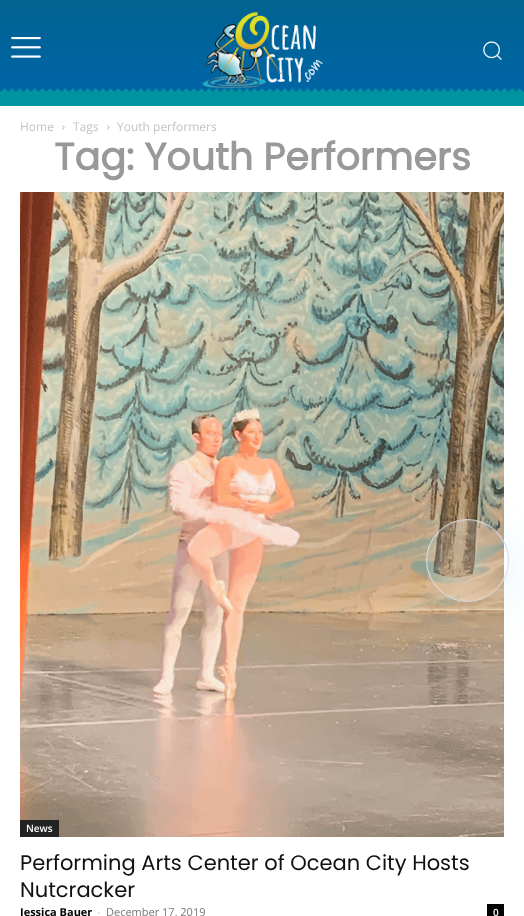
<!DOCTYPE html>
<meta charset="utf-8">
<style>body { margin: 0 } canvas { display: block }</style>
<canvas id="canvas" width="524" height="916"></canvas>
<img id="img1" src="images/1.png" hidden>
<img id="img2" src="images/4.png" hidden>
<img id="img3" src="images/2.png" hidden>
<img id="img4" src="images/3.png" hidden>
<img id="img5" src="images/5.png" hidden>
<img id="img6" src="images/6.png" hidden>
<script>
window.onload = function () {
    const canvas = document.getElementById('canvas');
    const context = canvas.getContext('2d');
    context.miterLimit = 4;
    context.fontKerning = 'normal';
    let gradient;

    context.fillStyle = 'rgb(255, 255, 255)';
    context.fillRect(0, 0, 524, 916);
    gradient = context.createLinearGradient(262, 0, 262, 105);
    gradient.addColorStop(0, 'rgb(0, 99, 145)');
    gradient.addColorStop(1, 'rgb(0, 101, 169)');
    context.fillStyle = gradient;
    context.fillRect(0, 0, 524, 92);
    context.drawImage(document.getElementById('img1'), 11, 37, 30, 21);
    context.drawImage(document.getElementById('img2'), 0, 88, 524, 10);
    context.drawImage(document.getElementById('img3'), 202, 11, 121, 78);
    context.drawImage(document.getElementById('img4'), 483, 41, 19, 19);
    context.fillStyle = 'rgb(0, 147, 160)';
    context.fillRect(0, 98, 524, 7);
    context.fillStyle = 'rgb(0, 149, 163)';
    context.fillRect(0, 105, 524, 1);
    context.drawImage(document.getElementById('img5'), 62, 125, 3, 5);
    context.drawImage(document.getElementById('img5'), 107, 125, 3, 5);
    context.drawImage(document.getElementById('img6'), 20, 192, 484, 645);
    context.fillStyle = 'rgb(34, 34, 34)';
    context.fillRect(20, 820, 39, 17);
    context.fillStyle = 'rgb(0, 0, 0)';
    context.fillRect(487, 904, 17, 12);
    context.save();
    context.beginPath();
    context.moveTo(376, 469);
    context.lineTo(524, 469);
    context.lineTo(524, 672);
    context.lineTo(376, 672);
    context.closePath();
    context.moveTo(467.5, 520);
    context.bezierCurveTo(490, 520, 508, 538, 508, 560.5);
    context.bezierCurveTo(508, 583, 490, 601, 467.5, 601);
    context.bezierCurveTo(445, 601, 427, 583, 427, 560.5);
    context.bezierCurveTo(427, 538, 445, 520, 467.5, 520);
    context.closePath();
    context.clip('evenodd');
    context.fillStyle = 'rgba(0, 156, 222, 0.08)';
    context.filter = 'blur(20px)';
    context.beginPath();
    context.roundRect(437, 530, 81, 81, 40.5);
    context.fill();
    context.filter = 'none';
    context.restore();
    gradient = context.createLinearGradient(468, 521, 468, 600);
    gradient.addColorStop(0, 'rgba(242, 242, 242, 0.05)');
    gradient.addColorStop(1, 'rgba(242, 242, 242, 0.02)');
    context.fillStyle = gradient;
    context.fillRect(427, 521, 77, 72);
    gradient = context.createLinearGradient(468, 600, 468, 679);
    gradient.addColorStop(0, 'rgba(242, 242, 242, 0.05)');
    gradient.addColorStop(1, 'rgba(242, 242, 242, 0.02)');
    context.fillStyle = gradient;
    context.fillRect(461, 600, 13, 1);
    context.save();
    context.beginPath();
    context.roundRect(427, 520, 81, 81, 40.5);
    context.clip();
    gradient = context.createRadialGradient(462, 227.21, 0, 462, 227.21, 58);
    gradient.addColorStop(0, 'rgba(242, 242, 242, 0.33)');
    gradient.addColorStop(1, 'rgba(242, 242, 242, 0)');
    context.fillStyle = gradient;
    context.beginPath();
    context.rect(428, 521, 76, 66);
    context.save();
    context.clip();
    context.scale(1, 121 / 58);
    context.fillRect(0, 0, 524, 440);
    context.restore();
    gradient = context.createRadialGradient(462, 265.07, 0, 462, 265.07, 58);
    gradient.addColorStop(0, 'rgba(242, 242, 242, 0.33)');
    gradient.addColorStop(1, 'rgba(242, 242, 242, 0)');
    context.fillStyle = gradient;
    context.beginPath();
    context.rect(459, 600, 17, 1);
    context.save();
    context.clip();
    context.scale(1, 121 / 58);
    context.fillRect(0, 0, 524, 440);
    context.restore();
    gradient = context.createRadialGradient(464, 418.66, 0, 464, 418.66, 45);
    gradient.addColorStop(0, 'rgba(255, 255, 255, 0.2)');
    gradient.addColorStop(1, 'rgba(255, 255, 255, 0)');
    context.fillStyle = gradient;
    context.beginPath();
    context.rect(459, 520, 17, 1);
    context.save();
    context.clip();
    context.scale(1, 56 / 45);
    context.fillRect(0, 0, 524, 737);
    context.restore();
    gradient = context.createRadialGradient(464, 482.14, 0, 464, 482.14, 45);
    gradient.addColorStop(0, 'rgba(255, 255, 255, 0.2)');
    gradient.addColorStop(1, 'rgba(255, 255, 255, 0)');
    context.fillStyle = gradient;
    context.beginPath();
    context.rect(430, 550, 71, 50);
    context.save();
    context.clip();
    context.scale(1, 56 / 45);
    context.fillRect(0, 0, 524, 737);
    context.restore();
    context.restore();
    context.beginPath();
    context.arc(467.5, 560.5, 40, 0, 2 * Math.PI);
    context.strokeStyle = 'rgba(255, 255, 255, 0.2)';
    context.stroke();
    context.beginPath();
    context.arc(467.5, 560.5, 41, 0, 2 * Math.PI);
    context.strokeStyle = 'rgb(219, 218, 222)';
    context.stroke();
    context.font = '12px Open Sans';
    context.fillStyle = 'rgb(195, 195, 195)';
    context.fillText('Home', 20, 131);
    context.fillText('Tags', 73, 131);
    context.fillText('Youth performers', 117, 131);
    context.font = 'bold 38px Poppins';
    context.fillStyle = 'rgb(153, 153, 153)';
    context.fillText('Tag: Youth Performers', 54, 170);
    context.font = '600 10px Open Sans';
    context.fillStyle = 'rgb(255, 255, 255)';
    context.fillText('News', 26, 832);
    context.font = '21px Poppins';
    context.fillStyle = 'rgb(17, 17, 17)';
    context.fillText('Performing Arts Center of Ocean City Hosts', 20, 870);
    context.fillText('Nutcracker', 20, 897);
    context.font = 'bold 11px Open Sans';
    context.fillStyle = 'rgb(0, 0, 0)';
    context.fillText('Jessica Bauer', 20, 916);
    context.font = '11px Open Sans';
    context.fillStyle = 'rgb(204, 204, 204)';
    context.fillText('-', 97, 916);
    context.fillStyle = 'rgb(118, 118, 118)';
    context.fillText('December 17, 2019', 106, 916);
    context.font = '600 10px Open Sans';
    context.fillStyle = 'rgb(255, 255, 255)';
    context.fillText('0', 493, 916);
};
</script>
